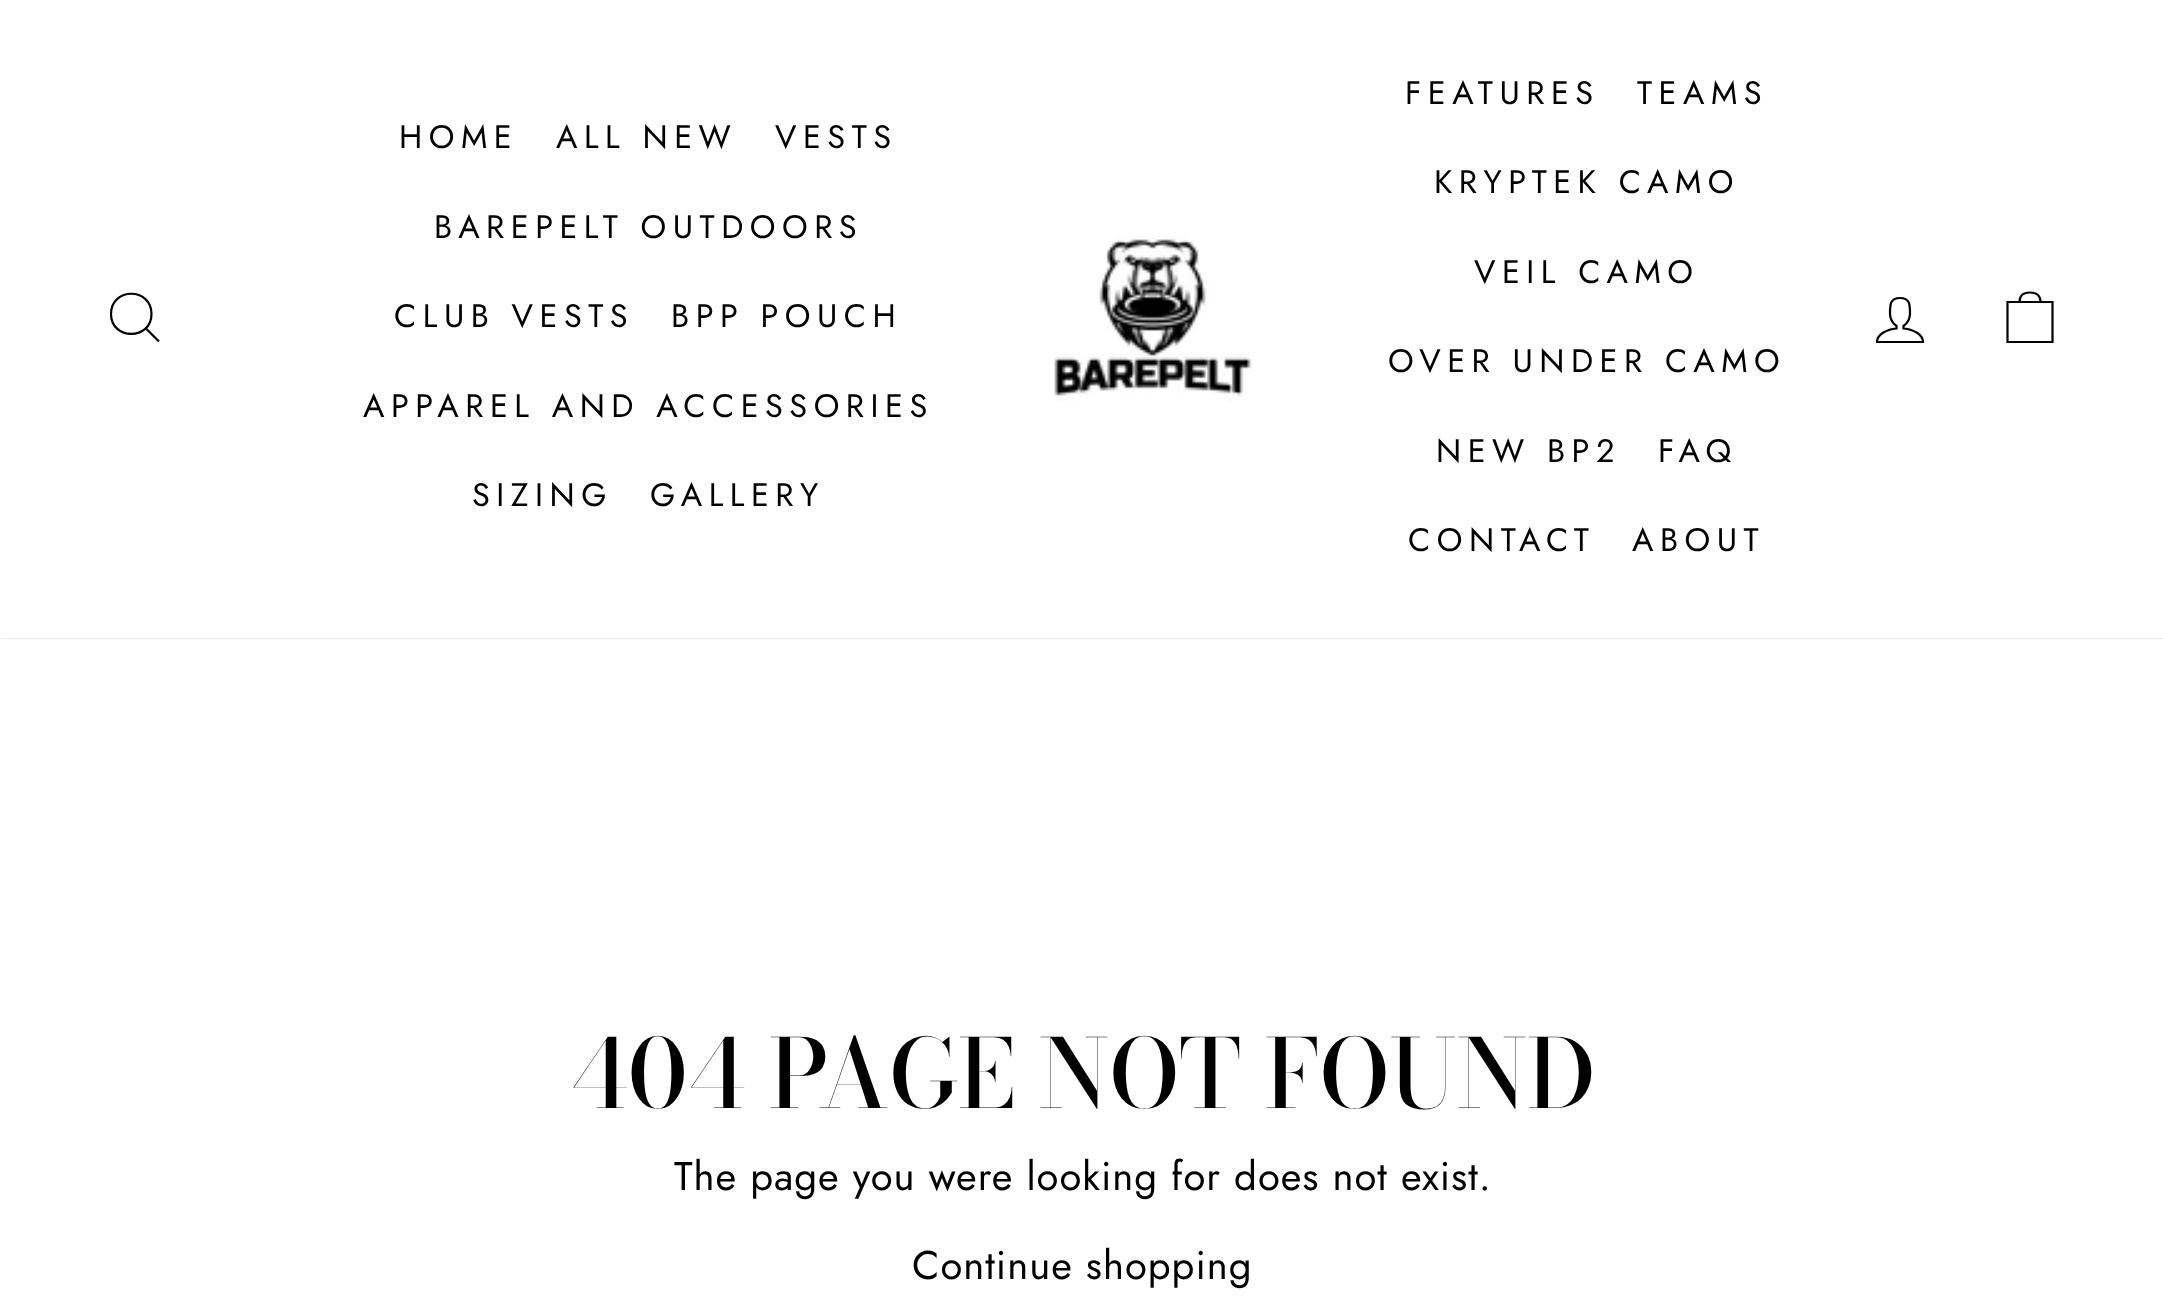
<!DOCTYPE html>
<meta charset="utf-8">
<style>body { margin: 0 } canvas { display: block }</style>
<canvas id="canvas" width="2163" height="1297"></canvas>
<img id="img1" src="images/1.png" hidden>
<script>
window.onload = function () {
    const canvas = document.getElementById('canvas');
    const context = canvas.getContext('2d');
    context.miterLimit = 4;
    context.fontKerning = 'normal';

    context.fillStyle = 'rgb(255, 255, 255)';
    context.fillRect(0, 0, 2163, 1297);
    context.fillStyle = 'rgba(0, 0, 0, 0.2)';
    context.filter = 'blur(1px)';
    context.beginPath();
    context.rect(0, 0, 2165, 638);
    context.fill();
    context.filter = 'none';
    context.fillStyle = 'rgb(255, 255, 255)';
    context.fillRect(0, 0, 2163, 638);
    context.beginPath();
    context.moveTo(151.5, 314);
    context.bezierCurveTo(151.5, 340.5, 111, 340.5, 111, 314);
    context.bezierCurveTo(111, 287, 151.5, 287, 151.5, 314);
    context.closePath();
    context.moveTo(159, 341.5);
    context.lineTo(146, 328.5);
    context.strokeStyle = 'rgb(0, 0, 0)';
    context.lineWidth = 2.2;
    context.stroke();
    context.drawImage(document.getElementById('img1'), 1054, 235, 200, 167);
    context.beginPath();
    context.moveTo(1903.5, 328.5);
    context.lineTo(1903.5, 326);
    context.bezierCurveTo(1907, 323.5, 1910, 318.5, 1910, 313.5);
    context.bezierCurveTo(1910, 305, 1910, 298, 1900, 298);
    context.bezierCurveTo(1890, 298, 1890, 305, 1890, 313.5);
    context.bezierCurveTo(1890, 318.5, 1893, 323.5, 1896.5, 326);
    context.lineTo(1896.5, 328.5);
    context.bezierCurveTo(1885.5, 329.5, 1877, 335, 1877, 342);
    context.lineTo(1923, 342);
    context.bezierCurveTo(1923, 335, 1914.5, 329.5, 1903.5, 328.5);
    context.closePath();
    context.stroke();
    context.beginPath();
    context.moveTo(2007.5, 302);
    context.lineTo(2052.5, 302);
    context.lineTo(2052.5, 342);
    context.lineTo(2007.5, 342);
    context.closePath();
    context.moveTo(2019.5, 302);
    context.bezierCurveTo(2019.5, 294.5, 2024, 292.5, 2030, 292.5);
    context.bezierCurveTo(2036, 292.5, 2040.5, 294.5, 2040.5, 302);
    context.stroke();
    context.letterSpacing = '6.5px';
    context.font = '32.5px Jost';
    context.fillStyle = 'rgb(0, 0, 0)';
    context.fillText('HOME', 399, 148);
    context.fillText('ALL NEW', 556, 148);
    context.fillText('VESTS', 775, 148);
    context.fillText('BAREPELT OUTDOORS', 434, 238);
    context.fillText('CLUB VESTS', 394, 327);
    context.fillText('BPP POUCH', 671, 327);
    context.fillText('APPAREL AND ACCESSORIES', 363, 417);
    context.fillText('SIZING', 472, 506);
    context.fillText('GALLERY', 650, 506);
    context.fillText('FEATURES', 1405, 104);
    context.fillText('TEAMS', 1637, 104);
    context.fillText('KRYPTEK CAMO', 1434, 193);
    context.fillText('VEIL CAMO', 1474, 283);
    context.fillText('OVER UNDER CAMO', 1388, 372);
    context.fillText('NEW BP2', 1436, 462);
    context.fillText('FAQ', 1658, 462);
    context.fillText('CONTACT', 1408, 551);
    context.fillText('ABOUT', 1632, 551);
    context.letterSpacing = '0px';
    context.font = '500 95px Bodoni Moda';
    context.fillText('404 PAGE NOT FOUND', 570, 1108);
    context.letterSpacing = '1px';
    context.font = '40px Jost';
    context.fillText('The page you were looking for does not exist.', 674, 1190);
    context.fillText('Continue shopping', 912, 1279);
};
</script>
